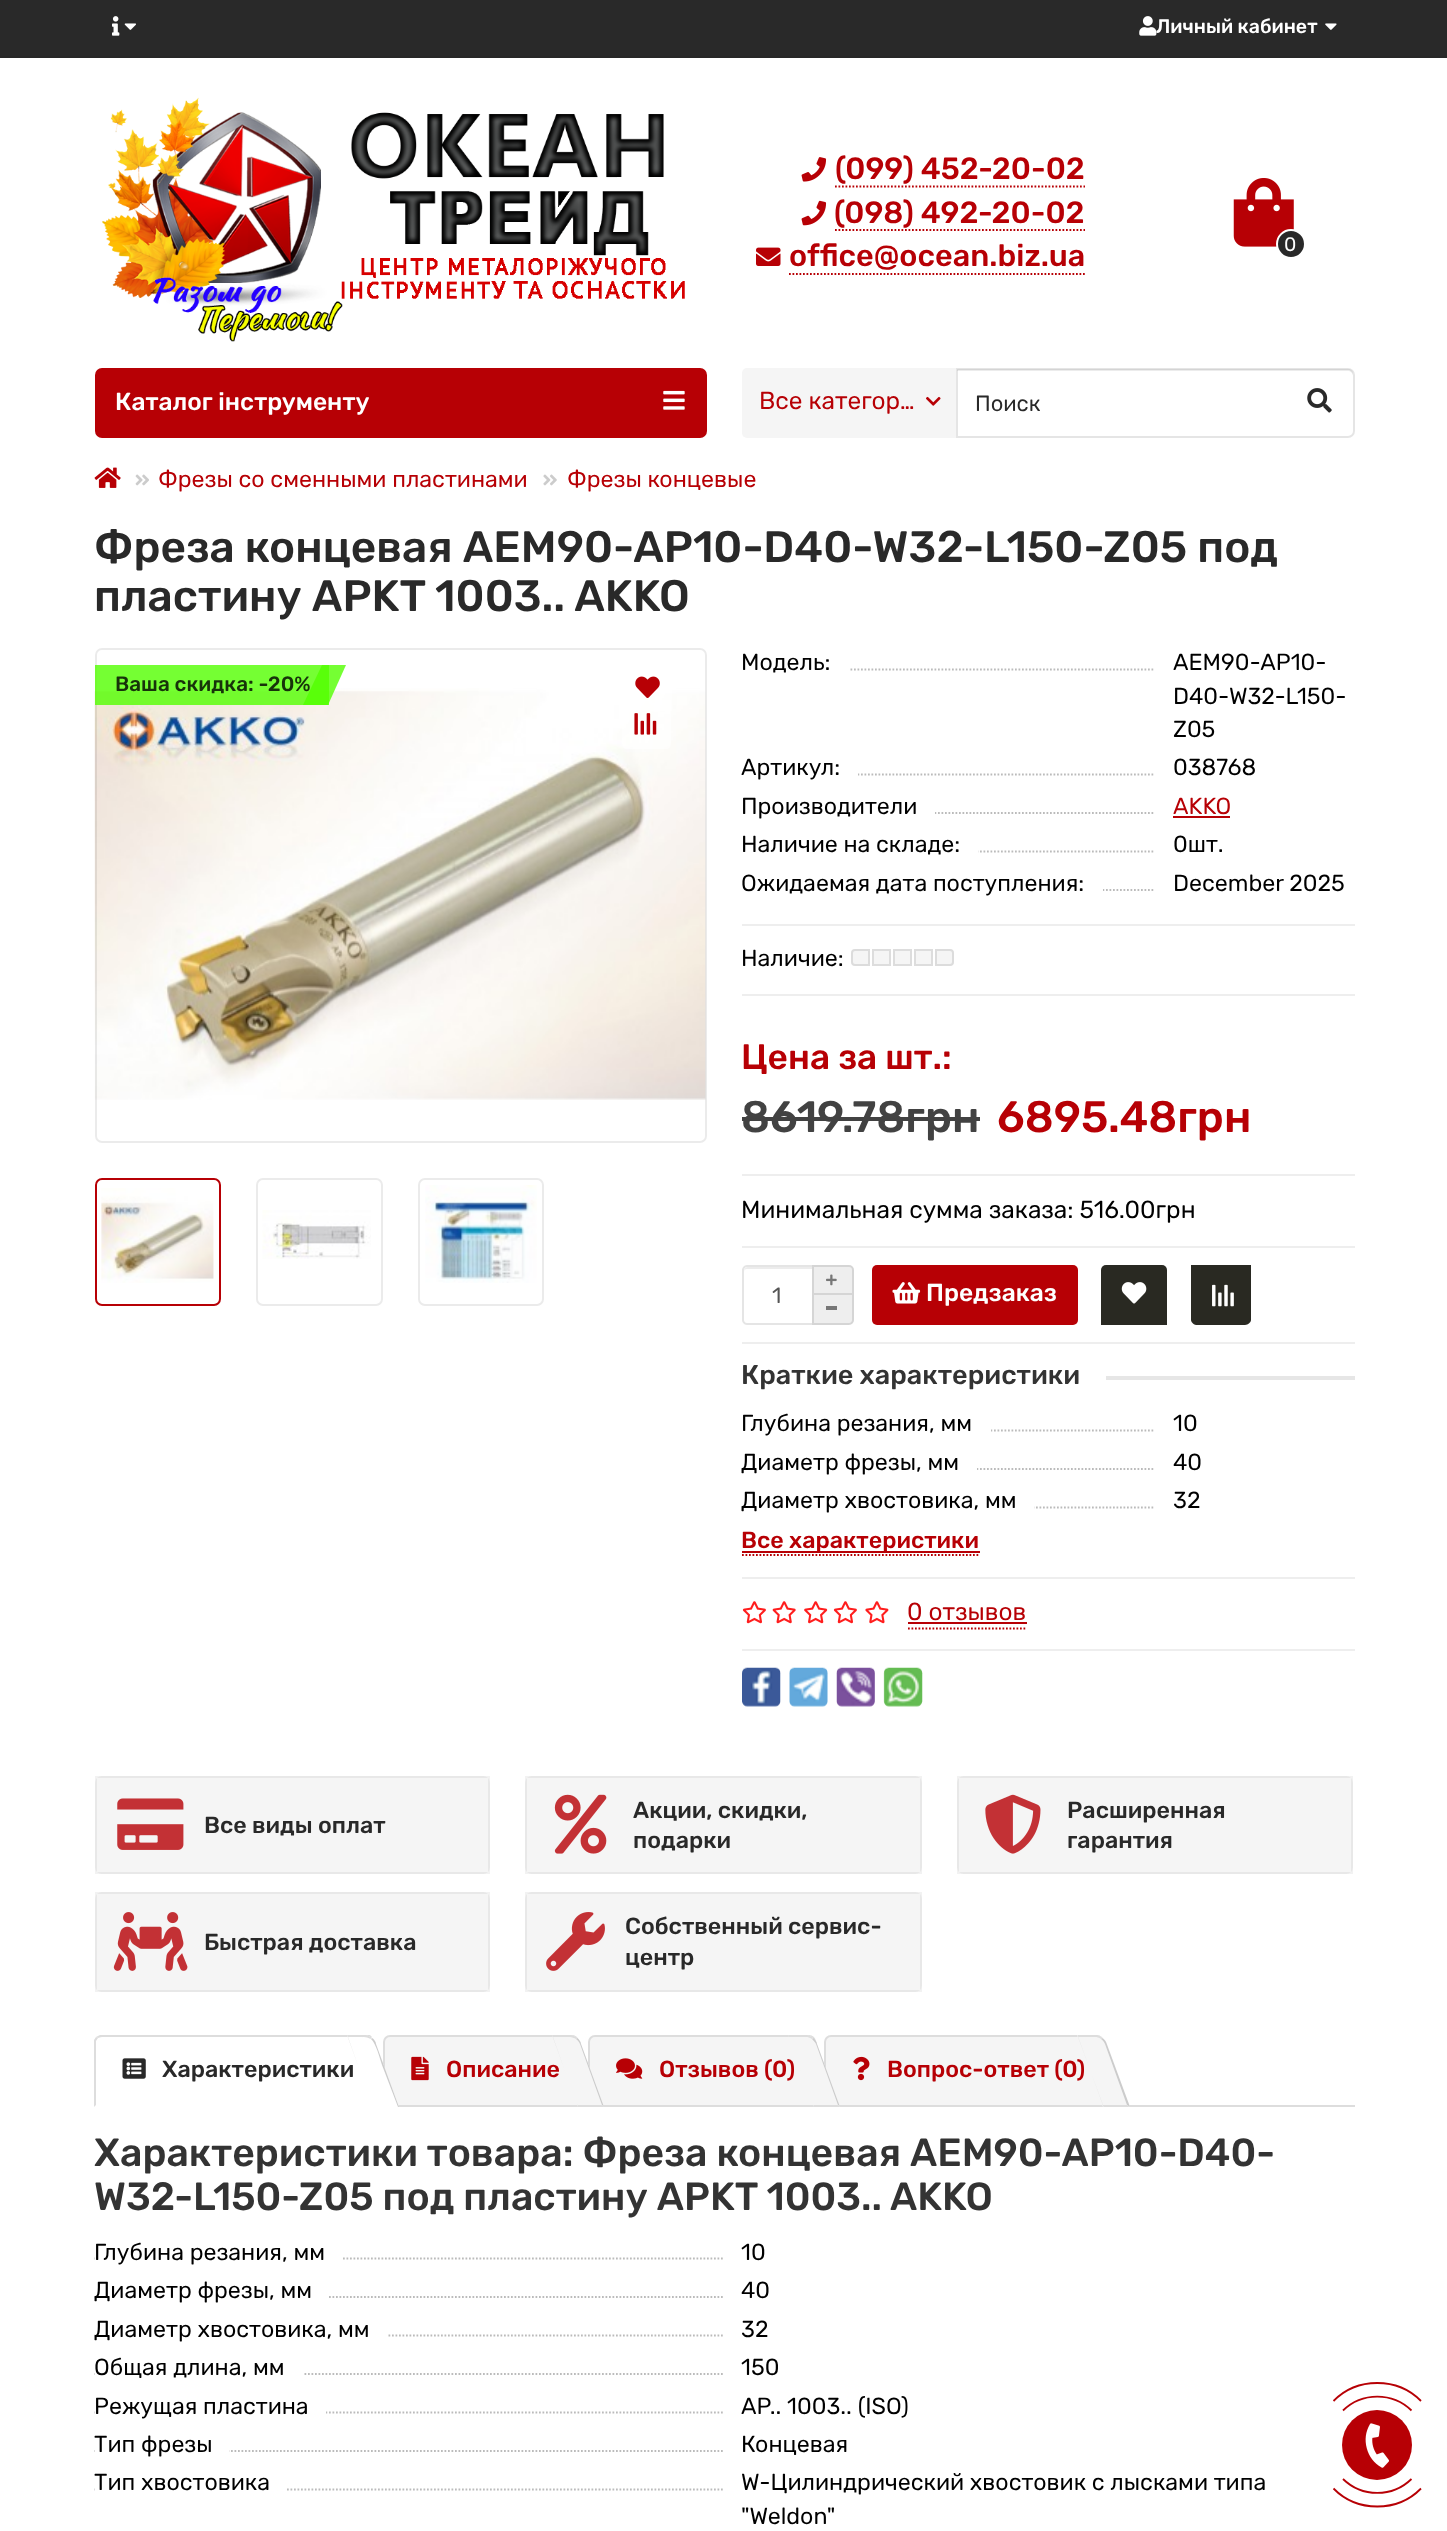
<!DOCTYPE html>
<meta charset="utf-8">
<style>body { margin: 0 } canvas { display: block }</style>
<canvas id="canvas" width="1447" height="2531"></canvas>
<img id="img1" src="images/1.png" hidden>
<img id="img2" src="images/2.png" hidden>
<img id="img3" src="images/3.png" hidden>
<img id="img4" src="images/4.png" hidden>
<img id="img5" src="images/5.png" hidden>
<img id="img6" src="images/6.png" hidden>
<img id="img7" src="images/7.png" hidden>
<img id="img8" src="images/8.png" hidden>
<img id="img9" src="images/9.png" hidden>
<img id="img10" src="images/10.png" hidden>
<img id="img11" src="images/11.png" hidden>
<img id="img12" src="images/12.png" hidden>
<img id="img13" src="images/13.png" hidden>
<img id="img14" src="images/14.png" hidden>
<img id="img15" src="images/15.png" hidden>
<img id="img16" src="images/16.png" hidden>
<img id="img17" src="images/17.png" hidden>
<img id="img18" src="images/18.png" hidden>
<img id="img19" src="images/19.png" hidden>
<img id="img20" src="images/20.png" hidden>
<img id="img21" src="images/21.png" hidden>
<img id="img22" src="images/22.png" hidden>
<img id="img23" src="images/23.png" hidden>
<img id="img24" src="images/24.png" hidden>
<img id="img25" src="images/25.png" hidden>
<img id="img26" src="images/26.png" hidden>
<img id="img27" src="images/27.png" hidden>
<img id="img28" src="images/28.png" hidden>
<img id="img29" src="images/29.png" hidden>
<img id="img30" src="images/30.png" hidden>
<img id="img31" src="images/31.png" hidden>
<img id="img32" src="images/32.png" hidden>
<img id="img33" src="images/33.png" hidden>
<img id="img34" src="images/34.png" hidden>
<img id="img35" src="images/35.png" hidden>
<img id="img36" src="images/36.png" hidden>
<img id="img37" src="images/37.png" hidden>
<img id="img38" src="images/38.png" hidden>
<img id="img39" src="images/39.png" hidden>
<img id="img40" src="images/40.png" hidden>
<img id="img41" src="images/41.png" hidden>
<img id="img42" src="images/42.png" hidden>
<img id="img43" src="images/43.png" hidden>
<script>
window.onload = function () {
    const canvas = document.getElementById('canvas');
    const context = canvas.getContext('2d');
    context.miterLimit = 4;
    context.fontKerning = 'normal';

    context.fillStyle = 'rgb(255, 255, 255)';
    context.fillRect(0, 0, 1447, 2531);
    context.fillStyle = 'rgb(41, 41, 41)';
    context.fillRect(0, 0, 1447, 56);
    context.fillStyle = 'rgb(39, 39, 39)';
    context.fillRect(0, 56, 1447, 2);
    context.drawImage(document.getElementById('img1'), 112, 16, 8, 20);
    context.drawImage(document.getElementById('img2'), 124, 23, 12, 7);
    context.drawImage(document.getElementById('img3'), 1139, 16, 18, 20);
    context.drawImage(document.getElementById('img4'), 1325, 23, 12, 7);
    context.drawImage(document.getElementById('img5'), 102, 97, 583, 245);
    context.drawImage(document.getElementById('img6'), 801, 157, 26, 25);
    context.beginPath();
    context.moveTo(835, 186.5);
    context.lineTo(1085, 186.5);
    context.strokeStyle = 'rgb(183, 0, 5)';
    context.lineWidth = 1.8;
    context.setLineDash([1.75, 1.75]);
    context.stroke();
    context.drawImage(document.getElementById('img7'), 801, 200, 26, 26);
    context.beginPath();
    context.moveTo(835, 230);
    context.lineTo(1085, 230);
    context.stroke();
    context.drawImage(document.getElementById('img8'), 756, 247, 25, 19);
    context.beginPath();
    context.moveTo(789, 274);
    context.lineTo(1085, 274);
    context.stroke();
    context.drawImage(document.getElementById('img9'), 1233, 178, 61, 69);
    context.fillStyle = 'rgb(41, 41, 41)';
    context.beginPath();
    context.arc(1291, 244, 14, 0, 2 * Math.PI);
    context.fill();
    context.strokeStyle = 'rgb(255, 255, 255)';
    context.lineWidth = 2;
    context.setLineDash([]);
    context.stroke();
    context.fillStyle = 'rgb(183, 0, 5)';
    context.beginPath();
    context.roundRect(95, 368, 612, 70, 7);
    context.fill();
    context.drawImage(document.getElementById('img10'), 663, 390, 22, 20);
    context.fillStyle = 'rgb(245, 245, 245)';
    context.beginPath();
    context.roundRect(742, 368, 215, 70, [5, 0, 0, 5]);
    context.fill();
    context.drawImage(document.getElementById('img11'), 926, 396, 15, 10);
    context.fillStyle = 'rgb(255, 255, 255)';
    context.beginPath();
    context.roundRect(956, 368, 399, 70, [0, 7, 7, 0]);
    context.fill();
    context.fillStyle = 'rgb(236, 236, 236)';
    context.beginPath();
    context.moveTo(957, 371);
    context.lineTo(1348, 371);
    context.bezierCurveTo(1350, 371, 1353, 373, 1353, 376);
    context.lineTo(1353, 374);
    context.bezierCurveTo(1353, 371, 1351, 369, 1348, 369);
    context.lineTo(957, 369);
    context.closePath();
    context.fill();
    context.beginPath();
    context.roundRect(957, 369, 397, 68, [0, 6, 6, 0]);
    context.strokeStyle = 'rgba(0, 0, 0, 0.1)';
    context.stroke();
    context.drawImage(document.getElementById('img12'), 1307, 388, 25, 25);
    context.drawImage(document.getElementById('img13'), 94, 467, 27, 21);
    context.drawImage(document.getElementById('img14'), 135, 474, 14, 12);
    context.drawImage(document.getElementById('img15'), 543, 474, 14, 12);
    context.drawImage(document.getElementById('img16'), 94, 688, 612, 412);
    context.beginPath();
    context.roundRect(96, 649, 610, 493, 6);
    context.strokeStyle = 'rgba(0, 0, 0, 0.08)';
    context.stroke();
    context.fillStyle = 'rgba(255, 255, 255, 0.5)';
    context.beginPath();
    context.roundRect(623, 662, 49, 49, [5, 5, 0, 0]);
    context.fill();
    context.drawImage(document.getElementById('img17'), 635, 676, 25, 22);
    context.beginPath();
    context.moveTo(671, 700);
    context.lineTo(671, 744);
    context.bezierCurveTo(671, 747, 669, 749, 666, 749);
    context.lineTo(627, 749);
    context.bezierCurveTo(624, 749, 622, 747, 622, 744);
    context.lineTo(622, 700);
    context.closePath();
    context.fill();
    context.drawImage(document.getElementById('img18'), 634, 713, 23, 22);
    context.drawImage(document.getElementById('img19'), 101, 1188, 113, 95);
    context.beginPath();
    context.roundRect(96, 1179, 124, 126, 6);
    context.strokeStyle = 'rgb(183, 0, 5)';
    context.stroke();
    context.drawImage(document.getElementById('img20'), 262, 1210, 109, 49);
    context.beginPath();
    context.roundRect(257, 1179, 125, 126, 6);
    context.strokeStyle = 'rgb(235, 235, 235)';
    context.stroke();
    context.drawImage(document.getElementById('img21'), 425, 1185, 112, 98);
    context.beginPath();
    context.roundRect(419, 1179, 124, 126, 6);
    context.stroke();
    context.fillStyle = 'rgba(82, 255, 0, 0.8)';
    context.fillRect(95, 665, 234, 40);
    context.beginPath();
    context.moveTo(742, 669.5);
    context.lineTo(1155, 669.5);
    context.strokeStyle = 'rgb(187, 187, 187)';
    context.lineWidth = 1.8;
    context.setLineDash([1.75, 1.75]);
    context.stroke();
    context.fillStyle = 'rgb(255, 255, 255)';
    context.fillRect(742, 668, 107, 3);
    context.beginPath();
    context.moveTo(742, 774.5);
    context.lineTo(1155, 774.5);
    context.stroke();
    context.fillRect(742, 773, 116, 3);
    context.beginPath();
    context.moveTo(742, 813);
    context.lineTo(1155, 813);
    context.stroke();
    context.fillRect(742, 812, 193, 2);
    context.fillStyle = 'rgb(183, 0, 5)';
    context.fillRect(1173, 816, 57, 2);
    context.beginPath();
    context.moveTo(742, 851.5);
    context.lineTo(1155, 851.5);
    context.stroke();
    context.fillStyle = 'rgb(255, 255, 255)';
    context.fillRect(742, 850, 236, 3);
    context.beginPath();
    context.moveTo(742, 890);
    context.lineTo(1155, 890);
    context.stroke();
    context.fillRect(742, 889, 361, 2);
    context.fillStyle = 'rgb(238, 238, 238)';
    context.fillRect(742, 924, 613, 2);
    context.fillStyle = 'rgb(245, 245, 245)';
    context.beginPath();
    context.roundRect(851, 949, 19, 17, [4, 0, 0, 4]);
    context.fill();
    context.beginPath();
    context.roundRect(852, 950, 17, 15, [3, 0, 0, 3]);
    context.strokeStyle = 'rgba(0, 0, 0, 0.1)';
    context.lineWidth = 2;
    context.setLineDash([]);
    context.stroke();
    context.beginPath();
    context.rect(873, 950, 17, 15);
    context.fill();
    context.strokeStyle = 'rgb(221, 221, 221)';
    context.stroke();
    context.beginPath();
    context.rect(894, 950, 17, 15);
    context.fill();
    context.stroke();
    context.beginPath();
    context.rect(915, 950, 17, 15);
    context.fill();
    context.stroke();
    context.beginPath();
    context.roundRect(935, 949, 19, 17, [0, 4, 4, 0]);
    context.fill();
    context.beginPath();
    context.roundRect(936, 950, 17, 15, [0, 3, 3, 0]);
    context.strokeStyle = 'rgba(0, 0, 0, 0.1)';
    context.stroke();
    context.fillStyle = 'rgb(238, 238, 238)';
    context.fillRect(742, 994, 613, 2);
    context.fillStyle = 'rgb(66, 66, 66)';
    context.fillRect(742, 1117, 238, 4);
    context.fillStyle = 'rgb(238, 238, 238)';
    context.fillRect(742, 1174, 613, 2);
    context.fillRect(742, 1246, 613, 2);
    context.fillStyle = 'rgb(236, 236, 236)';
    context.beginPath();
    context.moveTo(747, 1269);
    context.lineTo(812, 1269);
    context.lineTo(812, 1267);
    context.lineTo(748, 1267);
    context.bezierCurveTo(746, 1267, 744, 1269, 744, 1271);
    context.lineTo(744, 1272);
    context.bezierCurveTo(744, 1270, 745, 1269, 747, 1269);
    context.closePath();
    context.fill();
    context.fillStyle = 'rgb(229, 229, 229)';
    context.beginPath();
    context.moveTo(747, 1265);
    context.lineTo(812, 1265);
    context.lineTo(812, 1325);
    context.lineTo(747, 1325);
    context.bezierCurveTo(744, 1325, 742, 1322, 742, 1320);
    context.lineTo(742, 1270);
    context.bezierCurveTo(742, 1268, 744, 1265, 747, 1265);
    context.closePath();
    context.moveTo(747, 1267);
    context.lineTo(812, 1267);
    context.lineTo(812, 1323);
    context.lineTo(747, 1323);
    context.bezierCurveTo(745, 1323, 744, 1321, 744, 1320);
    context.lineTo(744, 1270);
    context.bezierCurveTo(744, 1269, 745, 1267, 747, 1267);
    context.closePath();
    context.fill('evenodd');
    context.fillStyle = 'rgb(238, 238, 238)';
    context.beginPath();
    context.roundRect(812, 1265, 42, 30, [0, 5, 0, 0]);
    context.fill();
    context.beginPath();
    context.roundRect(813, 1266, 40, 28, [0, 4, 0, 0]);
    context.stroke();
    context.drawImage(document.getElementById('img22'), 826, 1274, 11, 12);
    context.beginPath();
    context.roundRect(812, 1295, 42, 30, [0, 0, 5, 0]);
    context.fill();
    context.fillStyle = 'rgba(0, 0, 0, 0.1)';
    context.beginPath();
    context.moveTo(812, 1295);
    context.lineTo(854, 1295);
    context.lineTo(854, 1320);
    context.bezierCurveTo(854, 1322, 852, 1325, 849, 1325);
    context.lineTo(812, 1325);
    context.closePath();
    context.moveTo(814, 1295);
    context.lineTo(852, 1295);
    context.lineTo(852, 1320);
    context.bezierCurveTo(852, 1321, 851, 1323, 849, 1323);
    context.lineTo(814, 1323);
    context.closePath();
    context.fill('evenodd');
    context.fillStyle = 'rgb(119, 119, 119)';
    context.fillRect(826, 1306, 11, 4);
    context.fillStyle = 'rgb(183, 0, 5)';
    context.beginPath();
    context.roundRect(872, 1265, 206, 60, 5);
    context.fill();
    context.drawImage(document.getElementById('img23'), 892, 1282, 29, 22);
    context.fillStyle = 'rgb(41, 41, 34)';
    context.beginPath();
    context.roundRect(1101, 1265, 66, 60, [5, 5, 0, 0]);
    context.fill();
    context.drawImage(document.getElementById('img24'), 1121, 1282, 26, 22);
    context.beginPath();
    context.moveTo(1251, 1265);
    context.lineTo(1251, 1320);
    context.bezierCurveTo(1251, 1322, 1248, 1325, 1245, 1325);
    context.lineTo(1196, 1325);
    context.bezierCurveTo(1194, 1325, 1191, 1322, 1191, 1320);
    context.lineTo(1191, 1265);
    context.closePath();
    context.fill();
    context.drawImage(document.getElementById('img25'), 1212, 1284, 22, 23);
    context.fillStyle = 'rgb(238, 238, 238)';
    context.fillRect(742, 1342, 613, 2);
    context.fillStyle = 'rgb(230, 230, 230)';
    context.fillRect(1106, 1376, 249, 4);
    context.beginPath();
    context.moveTo(742, 1430.5);
    context.lineTo(1155, 1430.5);
    context.strokeStyle = 'rgb(187, 187, 187)';
    context.lineWidth = 1.8;
    context.setLineDash([1.75, 1.75]);
    context.stroke();
    context.fillStyle = 'rgb(255, 255, 255)';
    context.fillRect(742, 1429, 249, 3);
    context.beginPath();
    context.moveTo(742, 1469);
    context.lineTo(1155, 1469);
    context.stroke();
    context.fillRect(742, 1468, 235, 2);
    context.beginPath();
    context.moveTo(742, 1507.5);
    context.lineTo(1155, 1507.5);
    context.stroke();
    context.fillRect(742, 1506, 292, 3);
    context.beginPath();
    context.moveTo(742, 1555);
    context.lineTo(980, 1555);
    context.strokeStyle = 'rgb(183, 0, 5)';
    context.stroke();
    context.fillStyle = 'rgb(183, 0, 5)';
    context.fillRect(742, 1551, 238, 2);
    context.fillStyle = 'rgb(238, 238, 238)';
    context.fillRect(742, 1577, 613, 2);
    context.drawImage(document.getElementById('img26'), 742, 1601, 24, 23);
    context.drawImage(document.getElementById('img27'), 772, 1601, 24, 23);
    context.drawImage(document.getElementById('img28'), 804, 1601, 24, 23);
    context.drawImage(document.getElementById('img26'), 833, 1601, 24, 23);
    context.drawImage(document.getElementById('img29'), 865, 1601, 24, 23);
    context.beginPath();
    context.moveTo(908, 1628.5);
    context.lineTo(1027, 1628.5);
    context.stroke();
    context.fillStyle = 'rgb(183, 0, 5)';
    context.fillRect(908, 1622, 119, 2);
    context.fillStyle = 'rgb(238, 238, 238)';
    context.fillRect(742, 1649, 613, 2);
    context.drawImage(document.getElementById('img30'), 742, 1667, 39, 40);
    context.drawImage(document.getElementById('img31'), 789, 1667, 39, 40);
    context.drawImage(document.getElementById('img32'), 836, 1667, 39, 40);
    context.drawImage(document.getElementById('img33'), 883, 1667, 40, 40);
    context.fillStyle = 'rgb(245, 245, 245)';
    context.beginPath();
    context.roundRect(95, 1776, 395, 98, 7);
    context.fill();
    context.strokeStyle = 'rgba(0, 0, 0, 0.05)';
    context.lineWidth = 2;
    context.setLineDash([]);
    context.strokeRect(96, 1777, 393, 96);
    context.drawImage(document.getElementById('img34'), 117, 1798, 67, 52);
    context.beginPath();
    context.roundRect(525, 1776, 397, 98, 7);
    context.fill();
    context.strokeRect(526, 1777, 395, 96);
    context.drawImage(document.getElementById('img35'), 554, 1794, 53, 60);
    context.beginPath();
    context.roundRect(957, 1776, 396, 98, 7);
    context.fill();
    context.strokeRect(958, 1777, 394, 96);
    context.drawImage(document.getElementById('img36'), 985, 1794, 56, 60);
    context.beginPath();
    context.roundRect(95, 1892, 395, 100, 7);
    context.fill();
    context.strokeRect(96, 1893, 393, 98);
    context.drawImage(document.getElementById('img37'), 113, 1912, 75, 59);
    context.beginPath();
    context.roundRect(525, 1892, 397, 100, 7);
    context.fill();
    context.strokeRect(526, 1893, 395, 98);
    context.drawImage(document.getElementById('img38'), 546, 1912, 59, 59);
    context.fillStyle = 'rgb(221, 221, 221)';
    context.fillRect(1129, 2105, 226, 2);
    context.beginPath();
    context.moveTo(102, 2037);
    context.bezierCurveTo(100, 2037, 99, 2038, 98, 2038);
    context.lineTo(96, 2037);
    context.lineTo(100, 2035);
    context.lineTo(370, 2035);
    context.lineTo(372, 2037);
    context.lineTo(371, 2038);
    context.lineTo(368, 2037);
    context.closePath();
    context.fill();
    context.beginPath();
    context.moveTo(94, 2107);
    context.lineTo(94, 2040);
    context.lineTo(96, 2037);
    context.lineTo(98, 2038);
    context.lineTo(96, 2041);
    context.lineTo(96, 2105);
    context.closePath();
    context.fill();
    context.drawImage(document.getElementById('img39'), 122, 2058, 24, 21);
    context.fillStyle = 'rgb(245, 245, 245)';
    context.beginPath();
    context.roundRect(384, 2036, 194, 70, [6, 6, 0, 0]);
    context.fill();
    context.strokeStyle = 'rgb(221, 221, 221)';
    context.stroke();
    context.drawImage(document.getElementById('img40'), 411, 2056, 18, 25);
    context.beginPath();
    context.roundRect(589, 2036, 226, 70, [6, 6, 0, 0]);
    context.fill();
    context.stroke();
    context.drawImage(document.getElementById('img41'), 616, 2058, 27, 21);
    context.beginPath();
    context.roundRect(825, 2036, 278, 70, [6, 6, 0, 0]);
    context.fill();
    context.stroke();
    context.drawImage(document.getElementById('img42'), 853, 2056, 17, 25);
    context.beginPath();
    context.moveTo(94.5, 2258.5);
    context.lineTo(724.5, 2258.5);
    context.strokeStyle = 'rgb(187, 187, 187)';
    context.lineWidth = 1.8;
    context.setLineDash([1.75, 1.75]);
    context.stroke();
    context.fillStyle = 'rgb(255, 255, 255)';
    context.fillRect(95, 2257, 247, 3);
    context.beginPath();
    context.moveTo(94.5, 2297);
    context.lineTo(724.5, 2297);
    context.stroke();
    context.fillRect(95, 2296, 233, 2);
    context.beginPath();
    context.moveTo(94.5, 2335.5);
    context.lineTo(724.5, 2335.5);
    context.stroke();
    context.fillRect(95, 2334, 292, 3);
    context.beginPath();
    context.moveTo(94.5, 2374);
    context.lineTo(724.5, 2374);
    context.stroke();
    context.fillRect(95, 2373, 208, 2);
    context.beginPath();
    context.moveTo(94.5, 2412.5);
    context.lineTo(724.5, 2412.5);
    context.stroke();
    context.fillRect(95, 2411, 231, 3);
    context.beginPath();
    context.moveTo(94.5, 2451);
    context.lineTo(724.5, 2451);
    context.stroke();
    context.fillRect(95, 2450, 134, 2);
    context.beginPath();
    context.moveTo(94.5, 2489.5);
    context.lineTo(724.5, 2489.5);
    context.stroke();
    context.fillRect(95, 2488, 191, 3);
    context.fillStyle = 'rgb(183, 0, 5)';
    context.beginPath();
    context.arc(1377, 2445, 35, 0, 2 * Math.PI);
    context.fill();
    context.beginPath();
    context.moveTo(1343, 2410.5);
    context.bezierCurveTo(1362, 2392, 1392.5, 2392, 1411.5, 2410.5);
    context.strokeStyle = 'rgb(183, 0, 5)';
    context.setLineDash([]);
    context.stroke();
    context.beginPath();
    context.moveTo(1333.5, 2401);
    context.bezierCurveTo(1357, 2377, 1397.5, 2377, 1421, 2401);
    context.stroke();
    context.beginPath();
    context.moveTo(1411.5, 2479);
    context.bezierCurveTo(1392.5, 2497.5, 1362, 2497.5, 1343, 2479);
    context.stroke();
    context.beginPath();
    context.moveTo(1421, 2488.5);
    context.bezierCurveTo(1397.5, 2512.5, 1357, 2512.5, 1333.5, 2488.5);
    context.stroke();
    context.drawImage(document.getElementById('img43'), 1365, 2423, 24, 45);
    context.font = '500 19.5px Rubik';
    context.fillStyle = 'rgb(255, 255, 255)';
    context.fillText('Личный кабинет', 1156, 33);
    context.font = '500 30.6px Rubik';
    context.fillStyle = 'rgb(183, 0, 5)';
    context.fillText('(099) 452-20-02', 835, 179);
    context.fillText('(098) 492-20-02', 834, 223);
    context.fillText('office@ocean.biz.ua', 789, 266);
    context.font = '19.5px Rubik';
    context.fillStyle = 'rgb(255, 255, 255)';
    context.fillText('0', 1284, 251);
    context.font = '500 24.5px Rubik';
    context.fillText('Каталог інструменту', 115, 410);
    context.font = '24.5px Rubik';
    context.fillStyle = 'rgb(183, 0, 5)';
    context.fillText('Все категор…', 759, 409);
    context.font = '22px Rubik';
    context.fillStyle = 'rgb(41, 41, 41)';
    context.fillText('Поиск', 975, 411);
    context.font = '23.25px Rubik';
    context.fillStyle = 'rgb(183, 0, 5)';
    context.fillText('Фрезы со сменными пластинами', 158, 487);
    context.fillText('Фрезы концевые', 567, 487);
    context.font = '500 44.1px Rubik';
    context.fillStyle = 'rgb(41, 41, 41)';
    context.fillText('Фреза концевая AEM90-AP10-D40-W32-L150-Z05 под', 94, 562);
    context.fillText('пластину APKT 1003.. AKKO', 94, 611);
    context.font = '500 20.75px Rubik';
    context.fillStyle = 'rgb(23, 51, 10)';
    context.fillText('Ваша скидка: -20%', 115, 691);
    context.fillStyle = 'rgba(82, 255, 0, 0.8)';
    context.beginPath();
    context.moveTo(322, 665);
    context.lineTo(346, 665);
    context.lineTo(328, 705);
    context.lineTo(303, 705);
    context.closePath();
    context.fill();
    context.font = '23.25px Rubik';
    context.fillStyle = 'rgb(0, 0, 0)';
    context.fillText('Модель:', 741, 670);
    context.fillText('AEM90-AP10-', 1173, 670);
    context.fillText('D40-W32-L150-', 1173, 704);
    context.fillText('Z05', 1173, 737);
    context.fillText('Артикул:', 741, 775);
    context.fillText('038768', 1173, 775);
    context.fillText('Производители', 741, 814);
    context.fillStyle = 'rgb(183, 0, 5)';
    context.fillText('AKKO', 1173, 814);
    context.fillStyle = 'rgb(0, 0, 0)';
    context.fillText('Наличие на складе:', 741, 852);
    context.fillText('0шт.', 1173, 852);
    context.fillText('Ожидаемая дата поступления:', 741, 891);
    context.fillText('December 2025', 1173, 891);
    context.fillText('Наличие:', 741, 966);
    context.font = '500 35.25px Rubik';
    context.fillStyle = 'rgb(183, 0, 5)';
    context.fillText('Цена за шт.:', 741, 1069);
    context.font = '500 44.1px Rubik';
    context.fillStyle = 'rgb(66, 66, 66)';
    context.fillText('8619.78грн', 741, 1132);
    context.fillStyle = 'rgb(183, 0, 5)';
    context.fillText('6895.48грн', 997, 1132);
    context.font = '24.5px Rubik';
    context.fillStyle = 'rgb(0, 0, 0)';
    context.fillText('Минимальная сумма заказа: 516.00грн', 741, 1218);
    context.font = '22px Rubik';
    context.fillStyle = 'rgb(85, 85, 85)';
    context.fillText('1', 772, 1303);
    context.font = '500 24.5px Rubik';
    context.fillStyle = 'rgb(255, 255, 255)';
    context.fillText('Предзаказ', 926, 1301);
    context.font = '500 27px Rubik';
    context.fillStyle = 'rgb(51, 51, 51)';
    context.fillText('Краткие характеристики', 741, 1384);
    context.font = '23.25px Rubik';
    context.fillStyle = 'rgb(0, 0, 0)';
    context.fillText('Глубина резания, мм', 741, 1431);
    context.fillText('10', 1173, 1431);
    context.fillText('Диаметр фрезы, мм', 741, 1470);
    context.fillText('40', 1173, 1470);
    context.fillText('Диаметр хвостовика, мм', 741, 1508);
    context.fillText('32', 1173, 1508);
    context.font = '500 23.25px Rubik';
    context.fillStyle = 'rgb(183, 0, 5)';
    context.fillText('Все характеристики', 741, 1548);
    context.font = '24.5px Rubik';
    context.fillText('0 отзывов', 907, 1620);
    context.font = '500 23.25px Rubik';
    context.fillStyle = 'rgb(41, 41, 41)';
    context.fillText('Все виды оплат', 204, 1833);
    context.fillText('Акции, скидки,', 633, 1818);
    context.fillText('подарки', 633, 1848);
    context.fillText('Расширенная', 1067, 1818);
    context.fillText('гарантия', 1067, 1848);
    context.fillText('Быстрая доставка', 204, 1950);
    context.fillText('Собственный сервис-', 625, 1934);
    context.fillText('центр', 625, 1965);
    context.fillText('Характеристики', 162, 2077);
    context.fillStyle = 'rgb(255, 255, 255)';
    context.beginPath();
    context.moveTo(347, 2035);
    context.lineTo(364, 2035);
    context.bezierCurveTo(369, 2035, 375, 2039, 376, 2044);
    context.lineTo(399, 2107);
    context.lineTo(373, 2107);
    context.closePath();
    context.fill();
    context.fillStyle = 'rgb(221, 221, 221)';
    context.beginPath();
    context.moveTo(348, 2037);
    context.lineTo(360, 2071);
    context.lineTo(347, 2035);
    context.lineTo(366, 2035);
    context.bezierCurveTo(368, 2035.5, 370, 2036.5, 371.5, 2037.5);
    context.lineTo(370.5, 2039);
    context.bezierCurveTo(367, 2036.5, 361, 2037, 348, 2037);
    context.closePath();
    context.fill();
    context.fillStyle = 'rgb(204, 204, 204)';
    context.beginPath();
    context.moveTo(398, 2107);
    context.lineTo(382, 2065);
    context.bezierCurveTo(380, 2059, 376, 2043, 371, 2039);
    context.lineTo(372, 2038);
    context.bezierCurveTo(374, 2039, 376, 2042, 376, 2044);
    context.lineTo(399, 2107);
    context.closePath();
    context.fill();
    context.fillStyle = 'rgb(183, 0, 5)';
    context.fillText('Описание', 446, 2077);
    context.fillStyle = 'rgb(245, 245, 245)';
    context.beginPath();
    context.moveTo(552, 2035);
    context.lineTo(569, 2035);
    context.bezierCurveTo(574, 2035, 580, 2039, 581, 2044);
    context.lineTo(604, 2107);
    context.lineTo(578, 2107);
    context.closePath();
    context.fill();
    context.fillStyle = 'rgb(221, 221, 221)';
    context.beginPath();
    context.moveTo(553, 2037);
    context.lineTo(565, 2071);
    context.lineTo(552, 2035);
    context.lineTo(571, 2035);
    context.bezierCurveTo(573, 2035.5, 575, 2036.5, 576.5, 2037.5);
    context.lineTo(576, 2039);
    context.bezierCurveTo(574, 2038, 572, 2037, 570, 2037);
    context.closePath();
    context.fill();
    context.fillStyle = 'rgb(204, 204, 204)';
    context.beginPath();
    context.moveTo(577, 2038);
    context.bezierCurveTo(579, 2039, 581, 2042, 581, 2044);
    context.lineTo(604, 2107);
    context.lineTo(602, 2105);
    context.lineTo(580, 2044);
    context.bezierCurveTo(579, 2042, 578, 2040, 576, 2039);
    context.closePath();
    context.fill();
    context.fillStyle = 'rgb(221, 221, 221)';
    context.beginPath();
    context.moveTo(565.5, 2072.5);
    context.lineTo(565, 2071);
    context.lineTo(567, 2077);
    context.closePath();
    context.moveTo(604, 2106.5);
    context.lineTo(604, 2107);
    context.lineTo(578, 2107);
    context.lineTo(577.5, 2105);
    context.lineTo(601.5, 2105);
    context.closePath();
    context.fill('evenodd');
    context.fillStyle = 'rgb(183, 0, 5)';
    context.fillText('Отзывов (0)', 659, 2077);
    context.fillStyle = 'rgb(245, 245, 245)';
    context.beginPath();
    context.moveTo(788, 2035);
    context.lineTo(805, 2035);
    context.bezierCurveTo(810, 2035, 816, 2039, 817, 2044);
    context.lineTo(840, 2107);
    context.lineTo(814, 2107);
    context.closePath();
    context.fill();
    context.fillStyle = 'rgb(221, 221, 221)';
    context.beginPath();
    context.moveTo(807, 2035);
    context.bezierCurveTo(809, 2035.5, 811, 2036.5, 812.5, 2037.5);
    context.lineTo(811.5, 2039);
    context.bezierCurveTo(810, 2037.5, 808, 2037, 806, 2037);
    context.lineTo(788.5, 2037);
    context.lineTo(788, 2035);
    context.closePath();
    context.moveTo(801, 2071);
    context.lineTo(788.5, 2037);
    context.closePath();
    context.fill('evenodd');
    context.fillStyle = 'rgb(204, 204, 204)';
    context.beginPath();
    context.moveTo(813, 2038);
    context.bezierCurveTo(815, 2039, 817, 2042, 817, 2044);
    context.lineTo(840, 2107);
    context.lineTo(838, 2105);
    context.lineTo(816, 2044);
    context.bezierCurveTo(815, 2042, 813, 2040, 812, 2039);
    context.closePath();
    context.fill();
    context.fillStyle = 'rgb(221, 221, 221)';
    context.beginPath();
    context.moveTo(840, 2107);
    context.lineTo(814, 2107);
    context.lineTo(813.5, 2105);
    context.lineTo(837.5, 2105);
    context.closePath();
    context.moveTo(801, 2071);
    context.lineTo(813.5, 2105);
    context.closePath();
    context.fill('evenodd');
    context.fillStyle = 'rgb(183, 0, 5)';
    context.fillText('Вопрос-ответ (0)', 887, 2077);
    context.fillStyle = 'rgb(245, 245, 245)';
    context.beginPath();
    context.moveTo(1077, 2035);
    context.lineTo(1095, 2035);
    context.bezierCurveTo(1100, 2035, 1105, 2039, 1107, 2044);
    context.lineTo(1130, 2107);
    context.lineTo(1103, 2107);
    context.closePath();
    context.fill();
    context.fillStyle = 'rgb(221, 221, 221)';
    context.beginPath();
    context.moveTo(1078, 2037);
    context.lineTo(1090.5, 2071);
    context.lineTo(1077.5, 2035);
    context.lineTo(1097, 2035);
    context.bezierCurveTo(1098.5, 2035.5, 1100.5, 2036.5, 1102, 2037.5);
    context.lineTo(1101, 2039);
    context.bezierCurveTo(1099, 2037.5, 1097, 2037, 1095, 2037);
    context.closePath();
    context.fill();
    context.fillStyle = 'rgb(204, 204, 204)';
    context.beginPath();
    context.moveTo(1102, 2038);
    context.bezierCurveTo(1104, 2039, 1105, 2040, 1106, 2042);
    context.lineTo(1130, 2107);
    context.lineTo(1127, 2105);
    context.lineTo(1105, 2044);
    context.bezierCurveTo(1104, 2042, 1103, 2040, 1101, 2039);
    context.closePath();
    context.fill();
    context.fillStyle = 'rgb(221, 221, 221)';
    context.beginPath();
    context.moveTo(1129.5, 2107);
    context.lineTo(1127, 2105);
    context.lineTo(1103, 2105);
    context.lineTo(1090.5, 2071);
    context.lineTo(1103.5, 2107);
    context.closePath();
    context.fill();
    context.font = '500 39.2px Rubik';
    context.fillStyle = 'rgb(51, 51, 51)';
    context.fillText('Характеристики товара: Фреза концевая AEM90-AP10-D40-', 94, 2166);
    context.fillText('W32-L150-Z05 под пластину APKT 1003.. AKKO', 94, 2210);
    context.font = '23.25px Rubik';
    context.fillStyle = 'rgb(0, 0, 0)';
    context.fillText('Глубина резания, мм', 94, 2260);
    context.fillText('10', 741, 2260);
    context.fillText('Диаметр фрезы, мм', 94, 2298);
    context.fillText('40', 741, 2298);
    context.fillText('Диаметр хвостовика, мм', 94, 2337);
    context.fillText('32', 741, 2337);
    context.fillText('Общая длина, мм', 94, 2375);
    context.fillText('150', 741, 2375);
    context.fillText('Режущая пластина', 94, 2414);
    context.fillText('AP.. 1003.. (ISO)', 741, 2414);
    context.fillText('Тип фрезы', 94, 2452);
    context.fillText('Концевая', 741, 2452);
    context.fillText('Тип хвостовика', 94, 2490);
    context.fillText('W-Цилиндрический хвостовик с лысками типа', 741, 2490);
    context.fillText('"Weldon"', 741, 2524);
};
</script>
